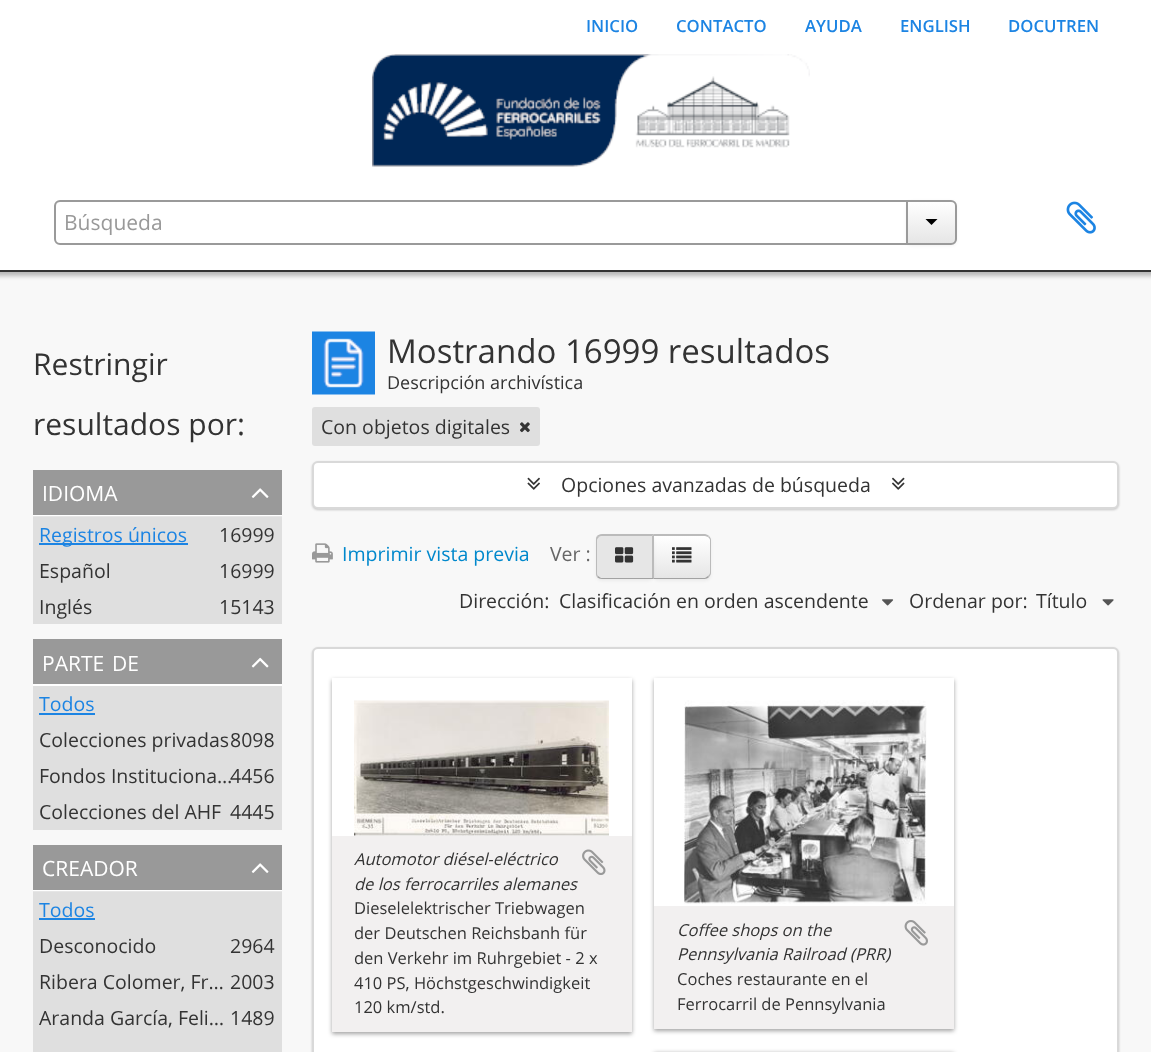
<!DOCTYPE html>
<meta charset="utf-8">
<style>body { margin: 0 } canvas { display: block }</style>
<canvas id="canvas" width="1151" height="1052"></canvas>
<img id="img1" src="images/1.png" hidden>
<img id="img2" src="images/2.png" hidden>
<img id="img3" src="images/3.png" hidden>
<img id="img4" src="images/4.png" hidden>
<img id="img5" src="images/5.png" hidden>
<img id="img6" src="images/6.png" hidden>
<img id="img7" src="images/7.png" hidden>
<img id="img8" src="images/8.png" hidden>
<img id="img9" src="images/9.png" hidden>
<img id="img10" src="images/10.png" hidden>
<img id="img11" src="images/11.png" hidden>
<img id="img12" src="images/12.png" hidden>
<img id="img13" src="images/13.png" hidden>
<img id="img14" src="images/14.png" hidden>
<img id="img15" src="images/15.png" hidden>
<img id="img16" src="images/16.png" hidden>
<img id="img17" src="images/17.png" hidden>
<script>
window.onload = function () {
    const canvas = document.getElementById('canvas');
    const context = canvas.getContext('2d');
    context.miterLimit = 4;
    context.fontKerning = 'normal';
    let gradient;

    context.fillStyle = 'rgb(248, 248, 248)';
    context.fillRect(0, 0, 1151, 1052);
    context.fillStyle = 'rgb(223, 223, 223)';
    context.fillRect(33, 892, 249, 160);
    context.fillRect(33, 517, 249, 107);
    context.fillStyle = 'rgba(0, 0, 0, 0.25)';
    context.filter = 'blur(2px)';
    context.beginPath();
    context.rect(-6, 5, 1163, 271);
    context.fill();
    context.filter = 'none';
    context.fillStyle = 'rgb(255, 255, 255)';
    context.fillRect(0, 0, 1151, 270);
    context.fillStyle = 'rgb(51, 51, 51)';
    context.fillRect(0, 270, 1151, 2);
    context.drawImage(document.getElementById('img1'), 372, 54, 438, 113);
    context.fillStyle = 'rgb(236, 236, 236)';
    context.beginPath();
    context.moveTo(60, 202);
    context.lineTo(906, 202);
    context.lineTo(906, 201);
    context.lineTo(61, 201);
    context.bezierCurveTo(58, 201, 56, 204, 56, 207);
    context.bezierCurveTo(56, 205, 58, 202, 60, 202);
    context.closePath();
    context.fill();
    context.beginPath();
    context.roundRect(55, 201, 852, 43, [5, 0, 0, 5]);
    context.strokeStyle = 'rgb(154, 154, 154)';
    context.lineWidth = 2;
    context.stroke();
    context.fillStyle = 'rgba(0, 0, 0, 0.05)';
    context.filter = 'blur(1.5px)';
    context.beginPath();
    context.roundRect(906, 201, 51, 45, 6);
    context.fill();
    context.filter = 'none';
    context.save();
    context.beginPath();
    context.roundRect(906, 200, 51, 45, [0, 6, 6, 0]);
    context.clip();
    gradient = context.createLinearGradient(932, 201, 932, 243);
    gradient.addColorStop(0, 'rgb(255, 255, 255)');
    gradient.addColorStop(1, 'rgb(230, 230, 230)');
    context.fillStyle = gradient;
    context.fillRect(908, 201, 49, 42);
    context.restore();
    context.beginPath();
    context.roundRect(907, 201, 49, 43, [0, 5, 5, 0]);
    context.stroke();
    context.fillStyle = 'rgb(0, 0, 0)';
    context.beginPath();
    context.moveTo(925.5, 219);
    context.lineTo(937.5, 219);
    context.lineTo(931.5, 225);
    context.closePath();
    context.fill();
    context.drawImage(document.getElementById('img2'), 1066, 201, 30, 33);
    context.fillStyle = 'rgb(255, 255, 255)';
    context.fillRect(33, 515, 249, 1);
    context.fillStyle = 'rgb(230, 230, 230)';
    context.fillRect(33, 516, 249, 1);
    context.fillStyle = 'rgb(153, 153, 153)';
    context.fillRect(33, 470, 249, 45);
    context.drawImage(document.getElementById('img3'), 251, 488, 18, 10);
    context.fillStyle = 'rgb(28, 132, 227)';
    context.fillRect(39, 543, 149, 2);
    context.fillStyle = 'rgb(255, 255, 255)';
    context.fillRect(33, 684, 249, 2);
    context.fillStyle = 'rgb(153, 153, 153)';
    context.fillRect(33, 639, 249, 45);
    context.drawImage(document.getElementById('img4'), 251, 657, 18, 11);
    context.fillStyle = 'rgb(223, 223, 223)';
    context.fillRect(33, 686, 249, 144);
    context.fillStyle = 'rgb(28, 132, 227)';
    context.fillRect(39, 713, 56, 2);
    context.fillStyle = 'rgb(255, 255, 255)';
    context.fillRect(33, 890, 249, 1);
    context.fillStyle = 'rgb(230, 230, 230)';
    context.fillRect(33, 891, 249, 1);
    context.fillStyle = 'rgb(153, 153, 153)';
    context.fillRect(33, 845, 249, 45);
    context.drawImage(document.getElementById('img3'), 251, 863, 18, 10);
    context.fillStyle = 'rgb(28, 132, 227)';
    context.fillRect(39, 918, 56, 2);
    context.drawImage(document.getElementById('img5'), 312, 331, 63, 64);
    context.fillStyle = 'rgb(223, 223, 223)';
    context.beginPath();
    context.roundRect(312, 407, 228, 39, 3);
    context.fill();
    context.drawImage(document.getElementById('img6'), 520, 422, 10, 11);
    context.fillStyle = 'rgba(0, 0, 0, 0.2)';
    context.filter = 'blur(1px)';
    context.beginPath();
    context.roundRect(312, 462, 807, 48, 6);
    context.fill();
    context.filter = 'none';
    context.fillStyle = 'rgb(255, 255, 255)';
    context.beginPath();
    context.roundRect(313, 462, 805, 46, 5);
    context.fill();
    context.strokeStyle = 'rgb(217, 217, 217)';
    context.stroke();
    context.drawImage(document.getElementById('img7'), 527, 477, 13, 13);
    context.drawImage(document.getElementById('img8'), 892, 477, 13, 13);
    context.drawImage(document.getElementById('img9'), 312, 543, 21, 20);
    context.fillStyle = 'rgba(0, 0, 0, 0.05)';
    context.filter = 'blur(1.5px)';
    context.beginPath();
    context.roundRect(653, 536, 58, 45, 6);
    context.fill();
    context.filter = 'none';
    context.fillStyle = 'rgb(245, 245, 245)';
    context.beginPath();
    context.roundRect(653, 534, 58, 45, [0, 6, 6, 0]);
    context.fill();
    context.save();
    context.beginPath();
    context.roundRect(653, 534, 58, 45, [0, 6, 6, 0]);
    context.clip();
    gradient = context.createLinearGradient(682, 536, 682, 578);
    gradient.addColorStop(0, 'rgb(255, 255, 255)');
    gradient.addColorStop(1, 'rgb(230, 230, 230)');
    context.fillStyle = gradient;
    context.fillRect(654, 536, 57, 42);
    context.restore();
    context.fillStyle = 'rgb(187, 187, 187)';
    context.beginPath();
    context.moveTo(652, 534);
    context.lineTo(654, 536);
    context.lineTo(705, 536);
    context.lineTo(708, 537);
    context.lineTo(709, 536);
    context.bezierCurveTo(708, 535, 706, 534, 705, 534);
    context.closePath();
    context.fill();
    context.beginPath();
    context.moveTo(711, 573);
    context.lineTo(711, 540);
    context.bezierCurveTo(711, 538, 710, 537, 709, 536);
    context.lineTo(708, 537);
    context.bezierCurveTo(709, 538, 710, 539, 710, 540);
    context.lineTo(710, 573);
    context.bezierCurveTo(710, 574, 709, 575, 708, 576);
    context.lineTo(709, 577);
    context.bezierCurveTo(710, 576, 711, 574, 711, 573);
    context.closePath();
    context.fill();
    context.fillStyle = 'rgb(162, 162, 162)';
    context.beginPath();
    context.moveTo(652, 579);
    context.lineTo(705, 579);
    context.bezierCurveTo(706, 579, 708, 578, 709, 577);
    context.lineTo(708, 576);
    context.lineTo(705, 578);
    context.lineTo(654, 578);
    context.closePath();
    context.fill();
    context.fillStyle = 'rgba(0, 0, 0, 0.05)';
    context.filter = 'blur(1.5px)';
    context.beginPath();
    context.roundRect(596, 536, 58, 45, 6);
    context.fill();
    context.filter = 'none';
    context.fillStyle = 'rgb(230, 230, 230)';
    context.beginPath();
    context.roundRect(596, 534, 58, 45, [6, 0, 0, 6]);
    context.fill();
    context.fillStyle = 'rgb(187, 187, 187)';
    context.beginPath();
    context.moveTo(602, 534);
    context.bezierCurveTo(600, 534, 598, 535, 597, 536);
    context.lineTo(599, 537);
    context.bezierCurveTo(599, 536, 601, 536, 602, 536);
    context.lineTo(652, 536);
    context.lineTo(654, 534);
    context.closePath();
    context.fill();
    context.beginPath();
    context.moveTo(654, 534);
    context.lineTo(652, 536);
    context.lineTo(652, 577);
    context.lineTo(654, 579);
    context.closePath();
    context.fill();
    context.fillStyle = 'rgb(162, 162, 162)';
    context.beginPath();
    context.moveTo(654, 579);
    context.lineTo(652, 577);
    context.lineTo(652, 578);
    context.lineTo(601, 578);
    context.lineTo(598, 576);
    context.lineTo(597, 577);
    context.bezierCurveTo(598, 578, 600, 579, 602, 579);
    context.closePath();
    context.fill();
    context.fillStyle = 'rgb(187, 187, 187)';
    context.beginPath();
    context.moveTo(597, 536);
    context.bezierCurveTo(596, 537, 596, 539, 596, 540);
    context.lineTo(596, 573);
    context.bezierCurveTo(596, 574, 596, 576, 597, 577);
    context.lineTo(598, 576);
    context.bezierCurveTo(597, 575, 597, 574, 597, 573);
    context.lineTo(597, 540);
    context.bezierCurveTo(597, 539, 598, 538, 599, 537);
    context.closePath();
    context.fill();
    context.drawImage(document.getElementById('img10'), 615, 547, 19, 16);
    context.drawImage(document.getElementById('img11'), 672, 547, 20, 16);
    context.drawImage(document.getElementById('img12'), 882, 599, 12, 7);
    context.drawImage(document.getElementById('img13'), 1102, 599, 12, 7);
    context.fillStyle = 'rgba(0, 0, 0, 0.2)';
    context.filter = 'blur(1px)';
    context.beginPath();
    context.roundRect(312, 648, 807, 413, 6);
    context.fill();
    context.filter = 'none';
    context.fillStyle = 'rgb(255, 255, 255)';
    context.beginPath();
    context.roundRect(313, 648, 805, 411, 5);
    context.fill();
    context.stroke();
    context.fillStyle = 'rgba(25, 25, 25, 0.4)';
    context.filter = 'blur(2px)';
    context.beginPath();
    context.rect(332, 680, 300, 354);
    context.fill();
    context.filter = 'none';
    context.fillStyle = 'rgb(255, 255, 255)';
    context.fillRect(332, 678, 300, 158);
    context.drawImage(document.getElementById('img14'), 354, 700, 255, 136);
    context.fillStyle = 'rgb(242, 240, 240)';
    context.fillRect(332, 836, 300, 196);
    context.drawImage(document.getElementById('img15'), 582, 849, 24, 26);
    context.save();
    context.beginPath();
    context.moveTo(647, 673);
    context.lineTo(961, 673);
    context.lineTo(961, 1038);
    context.lineTo(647, 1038);
    context.closePath();
    context.moveTo(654, 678);
    context.lineTo(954, 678);
    context.lineTo(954, 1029);
    context.lineTo(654, 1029);
    context.closePath();
    context.clip('evenodd');
    context.fillStyle = 'rgba(25, 25, 25, 0.4)';
    context.filter = 'blur(2px)';
    context.beginPath();
    context.rect(654, 680, 300, 351);
    context.fill();
    context.filter = 'none';
    context.restore();
    context.drawImage(document.getElementById('img16'), 684, 700, 243, 204);
    context.fillRect(654, 906, 300, 123);
    context.drawImage(document.getElementById('img17'), 904, 920, 24, 26);
    context.fillStyle = 'rgba(25, 25, 25, 0.4)';
    context.filter = 'blur(2px)';
    context.beginPath();
    context.rect(654, 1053, 300, 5);
    context.fill();
    context.filter = 'none';
    context.font = '600 16.75px Open Sans';
    context.fillStyle = 'rgb(28, 132, 227)';
    context.fillText('INICIO', 586, 32);
    context.fillText('CONTACTO', 676, 32);
    context.fillText('AYUDA', 805, 32);
    context.fillText('ENGLISH', 900, 32);
    context.fillText('DOCUTREN', 1008, 32);
    context.font = '21px Open Sans';
    context.fillStyle = 'rgb(153, 153, 153)';
    context.fillText('Búsqueda', 64, 230);
    context.font = '30px Open Sans';
    context.fillStyle = 'rgb(51, 51, 51)';
    context.fillText('Restringir', 33, 375);
    context.fillText('resultados por:', 33, 435);
    context.font = '21px Open Sans';
    context.fillStyle = 'rgb(255, 255, 255)';
    context.fillText('IDIOMA', 42, 501);
    context.font = '19.5px Open Sans';
    context.fillStyle = 'rgb(28, 132, 227)';
    context.fillText('Registros únicos', 39, 542);
    context.fillStyle = 'rgb(51, 51, 51)';
    context.fillText('16999', 219, 542);
    context.fillText('Español', 39, 578);
    context.fillText('16999', 219, 578);
    context.fillText('Inglés', 39, 614);
    context.fillText('15143', 219, 614);
    context.font = '21px Open Sans';
    context.fillStyle = 'rgb(255, 255, 255)';
    context.fillText('PARTE', 42, 671);
    context.fillText('DE', 112, 671);
    context.font = '19.5px Open Sans';
    context.fillStyle = 'rgb(28, 132, 227)';
    context.fillText('Todos', 39, 711);
    context.fillStyle = 'rgb(51, 51, 51)';
    context.fillText('Colecciones privadas', 39, 747);
    context.fillText('8098', 230, 747);
    context.fillText('Fondos Instituciona…', 39, 783);
    context.fillText('4456', 230, 783);
    context.fillText('Colecciones del AHF', 39, 819);
    context.fillText('4445', 230, 819);
    context.font = '21px Open Sans';
    context.fillStyle = 'rgb(255, 255, 255)';
    context.fillText('CREADOR', 42, 876);
    context.font = '19.5px Open Sans';
    context.fillStyle = 'rgb(28, 132, 227)';
    context.fillText('Todos', 39, 917);
    context.fillStyle = 'rgb(51, 51, 51)';
    context.fillText('Desconocido', 39, 953);
    context.fillText('2964', 230, 953);
    context.fillText('Ribera Colomer, Fr…', 39, 989);
    context.fillText('2003', 230, 989);
    context.fillText('Aranda García, Feli…', 39, 1025);
    context.fillText('1489', 230, 1025);
    context.font = '33px Open Sans';
    context.fillText('Mostrando 16999 resultados', 387, 363);
    context.font = '18px Open Sans';
    context.fillText('Descripción archivística', 387, 389);
    context.font = '19.5px Open Sans';
    context.fillText('Con objetos digitales', 321, 434);
    context.fillText('Opciones avanzadas de búsqueda', 561, 492);
    context.fillStyle = 'rgb(0, 136, 204)';
    context.fillText('Imprimir vista previa', 342, 561);
    context.fillStyle = 'rgb(102, 102, 102)';
    context.fillText('Ver :', 550, 561);
    context.fillStyle = 'rgb(51, 51, 51)';
    context.fillText('Dirección:', 459, 608);
    context.fillText('Clasificación en orden ascendente', 559, 608);
    context.fillText('Ordenar por:', 909, 608);
    context.fillText('Título', 1036, 608);
    context.font = 'italic 16.5px Open Sans';
    context.fillText('Automotor diésel-eléctrico', 354, 865);
    context.fillText('de los ferrocarriles alemanes', 354, 890);
    context.font = '16.5px Open Sans';
    context.fillText('Dieselelektrischer Triebwagen', 354, 914);
    context.fillText('der Deutschen Reichsbanh für', 354, 939);
    context.fillText('den Verkehr im Ruhrgebiet - 2 x', 354, 964);
    context.fillText('410 PS, Höchstgeschwindigkeit', 354, 989);
    context.fillText('120 km/std.', 354, 1013);
    context.font = 'italic 16.5px Open Sans';
    context.fillText('Coffee shops on the', 677, 936);
    context.fillText('Pennsylvania Railroad (PRR)', 677, 960);
    context.font = '16.5px Open Sans';
    context.fillText('Coches restaurante en el', 677, 985);
    context.fillText('Ferrocarril de Pennsylvania', 677, 1010);
};
</script>
